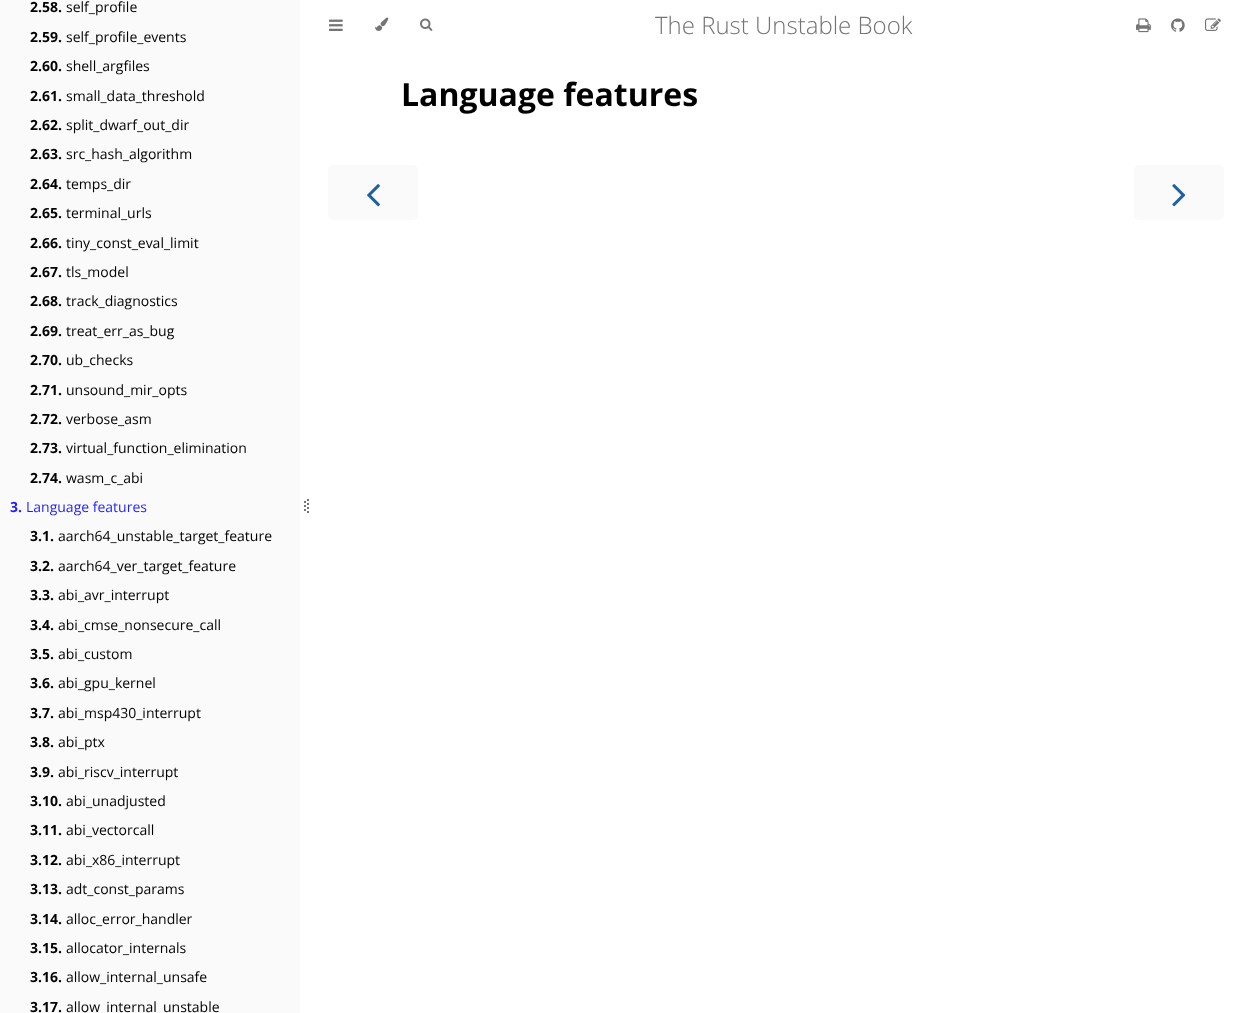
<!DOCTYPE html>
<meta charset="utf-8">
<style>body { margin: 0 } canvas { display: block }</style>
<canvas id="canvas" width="1244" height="1013"></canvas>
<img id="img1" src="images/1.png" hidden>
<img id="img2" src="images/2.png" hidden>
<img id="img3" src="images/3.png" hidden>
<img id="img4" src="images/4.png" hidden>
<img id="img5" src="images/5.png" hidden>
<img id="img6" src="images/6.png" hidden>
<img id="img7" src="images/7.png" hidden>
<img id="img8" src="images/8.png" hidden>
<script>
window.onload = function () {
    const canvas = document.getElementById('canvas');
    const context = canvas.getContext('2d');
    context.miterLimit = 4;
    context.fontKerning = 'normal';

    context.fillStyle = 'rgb(255, 255, 255)';
    context.fillRect(0, 0, 1244, 1013);
    context.fillStyle = 'rgb(250, 250, 250)';
    context.fillRect(0, 0, 300, 1013);
    context.beginPath();
    context.moveTo(305, 501);
    context.lineTo(305, 503);
    context.moveTo(305, 505);
    context.lineTo(305, 507);
    context.moveTo(305, 509);
    context.lineTo(305, 511);
    context.strokeStyle = 'rgb(116, 116, 116)';
    context.lineWidth = 2;
    context.stroke();
    context.beginPath();
    context.moveTo(308, 499);
    context.lineTo(308, 515);
    context.setLineDash([2, 2]);
    context.stroke();
    context.drawImage(document.getElementById('img1'), 329, 19, 14, 12);
    context.drawImage(document.getElementById('img2'), 375, 17, 14, 14);
    context.drawImage(document.getElementById('img3'), 420, 18, 13, 13);
    context.drawImage(document.getElementById('img4'), 1136, 18, 15, 15);
    context.drawImage(document.getElementById('img5'), 1171, 18, 14, 14);
    context.drawImage(document.getElementById('img6'), 1205, 18, 16, 13);
    context.beginPath();
    context.roundRect(328, 165, 90, 55, 5);
    context.fill();
    context.drawImage(document.getElementById('img7'), 367, 184, 13, 23);
    context.beginPath();
    context.roundRect(1134, 165, 90, 55, 5);
    context.fill();
    context.drawImage(document.getElementById('img8'), 1172, 184, 14, 23);
    context.font = 'bold 14px Open Sans';
    context.fillStyle = 'rgb(0, 0, 0)';
    context.fillText('2.58.', 30, 12);
    context.font = '14px Open Sans';
    context.fillText('self_profile', 66, 12);
    context.font = 'bold 14px Open Sans';
    context.fillText('2.59.', 30, 42);
    context.font = '14px Open Sans';
    context.fillText('self_profile_events', 66, 42);
    context.font = 'bold 14px Open Sans';
    context.fillText('2.60.', 30, 71);
    context.font = '14px Open Sans';
    context.fillText('shell_argfiles', 66, 71);
    context.font = 'bold 14px Open Sans';
    context.fillText('2.61.', 30, 101);
    context.font = '14px Open Sans';
    context.fillText('small_data_threshold', 66, 101);
    context.font = 'bold 14px Open Sans';
    context.fillText('2.62.', 30, 130);
    context.font = '14px Open Sans';
    context.fillText('split_dwarf_out_dir', 66, 130);
    context.font = 'bold 14px Open Sans';
    context.fillText('2.63.', 30, 159);
    context.font = '14px Open Sans';
    context.fillText('src_hash_algorithm', 66, 159);
    context.font = 'bold 14px Open Sans';
    context.fillText('2.64.', 30, 189);
    context.font = '14px Open Sans';
    context.fillText('temps_dir', 66, 189);
    context.font = 'bold 14px Open Sans';
    context.fillText('2.65.', 30, 218);
    context.font = '14px Open Sans';
    context.fillText('terminal_urls', 66, 218);
    context.font = 'bold 14px Open Sans';
    context.fillText('2.66.', 30, 248);
    context.font = '14px Open Sans';
    context.fillText('tiny_const_eval_limit', 66, 248);
    context.font = 'bold 14px Open Sans';
    context.fillText('2.67.', 30, 277);
    context.font = '14px Open Sans';
    context.fillText('tls_model', 66, 277);
    context.font = 'bold 14px Open Sans';
    context.fillText('2.68.', 30, 306);
    context.font = '14px Open Sans';
    context.fillText('track_diagnostics', 66, 306);
    context.font = 'bold 14px Open Sans';
    context.fillText('2.69.', 30, 336);
    context.font = '14px Open Sans';
    context.fillText('treat_err_as_bug', 66, 336);
    context.font = 'bold 14px Open Sans';
    context.fillText('2.70.', 30, 365);
    context.font = '14px Open Sans';
    context.fillText('ub_checks', 66, 365);
    context.font = 'bold 14px Open Sans';
    context.fillText('2.71.', 30, 395);
    context.font = '14px Open Sans';
    context.fillText('unsound_mir_opts', 66, 395);
    context.font = 'bold 14px Open Sans';
    context.fillText('2.72.', 30, 424);
    context.font = '14px Open Sans';
    context.fillText('verbose_asm', 66, 424);
    context.font = 'bold 14px Open Sans';
    context.fillText('2.73.', 30, 453);
    context.font = '14px Open Sans';
    context.fillText('virtual_function_elimination', 66, 453);
    context.font = 'bold 14px Open Sans';
    context.fillText('2.74.', 30, 483);
    context.font = '14px Open Sans';
    context.fillText('wasm_c_abi', 66, 483);
    context.font = 'bold 14px Open Sans';
    context.fillStyle = 'rgb(31, 31, 255)';
    context.fillText('3.', 10, 512);
    context.font = '14px Open Sans';
    context.fillText('Language features', 26, 512);
    context.font = 'bold 14px Open Sans';
    context.fillStyle = 'rgb(0, 0, 0)';
    context.fillText('3.1.', 30, 541);
    context.font = '14px Open Sans';
    context.fillText('aarch64_unstable_target_feature', 58, 541);
    context.font = 'bold 14px Open Sans';
    context.fillText('3.2.', 30, 571);
    context.font = '14px Open Sans';
    context.fillText('aarch64_ver_target_feature', 58, 571);
    context.font = 'bold 14px Open Sans';
    context.fillText('3.3.', 30, 600);
    context.font = '14px Open Sans';
    context.fillText('abi_avr_interrupt', 58, 600);
    context.font = 'bold 14px Open Sans';
    context.fillText('3.4.', 30, 630);
    context.font = '14px Open Sans';
    context.fillText('abi_cmse_nonsecure_call', 58, 630);
    context.font = 'bold 14px Open Sans';
    context.fillText('3.5.', 30, 659);
    context.font = '14px Open Sans';
    context.fillText('abi_custom', 58, 659);
    context.font = 'bold 14px Open Sans';
    context.fillText('3.6.', 30, 688);
    context.font = '14px Open Sans';
    context.fillText('abi_gpu_kernel', 58, 688);
    context.font = 'bold 14px Open Sans';
    context.fillText('3.7.', 30, 718);
    context.font = '14px Open Sans';
    context.fillText('abi_msp430_interrupt', 58, 718);
    context.font = 'bold 14px Open Sans';
    context.fillText('3.8.', 30, 747);
    context.font = '14px Open Sans';
    context.fillText('abi_ptx', 58, 747);
    context.font = 'bold 14px Open Sans';
    context.fillText('3.9.', 30, 777);
    context.font = '14px Open Sans';
    context.fillText('abi_riscv_interrupt', 58, 777);
    context.font = 'bold 14px Open Sans';
    context.fillText('3.10.', 30, 806);
    context.font = '14px Open Sans';
    context.fillText('abi_unadjusted', 66, 806);
    context.font = 'bold 14px Open Sans';
    context.fillText('3.11.', 30, 835);
    context.font = '14px Open Sans';
    context.fillText('abi_vectorcall', 66, 835);
    context.font = 'bold 14px Open Sans';
    context.fillText('3.12.', 30, 865);
    context.font = '14px Open Sans';
    context.fillText('abi_x86_interrupt', 66, 865);
    context.font = 'bold 14px Open Sans';
    context.fillText('3.13.', 30, 894);
    context.font = '14px Open Sans';
    context.fillText('adt_const_params', 66, 894);
    context.font = 'bold 14px Open Sans';
    context.fillText('3.14.', 30, 924);
    context.font = '14px Open Sans';
    context.fillText('alloc_error_handler', 66, 924);
    context.font = 'bold 14px Open Sans';
    context.fillText('3.15.', 30, 953);
    context.font = '14px Open Sans';
    context.fillText('allocator_internals', 66, 953);
    context.font = 'bold 14px Open Sans';
    context.fillText('3.16.', 30, 982);
    context.font = '14px Open Sans';
    context.fillText('allow_internal_unsafe', 66, 982);
    context.font = 'bold 14px Open Sans';
    context.fillText('3.17.', 30, 1012);
    context.font = '14px Open Sans';
    context.fillText('allow_internal_unstable', 66, 1012);
    context.font = '300 24px Open Sans';
    context.fillStyle = 'rgb(116, 116, 116)';
    context.fillText('The Rust Unstable Book', 655, 34);
    context.font = 'bold 32px Open Sans';
    context.fillStyle = 'rgb(0, 0, 0)';
    context.fillText('Language features', 401, 106);
};
</script>
